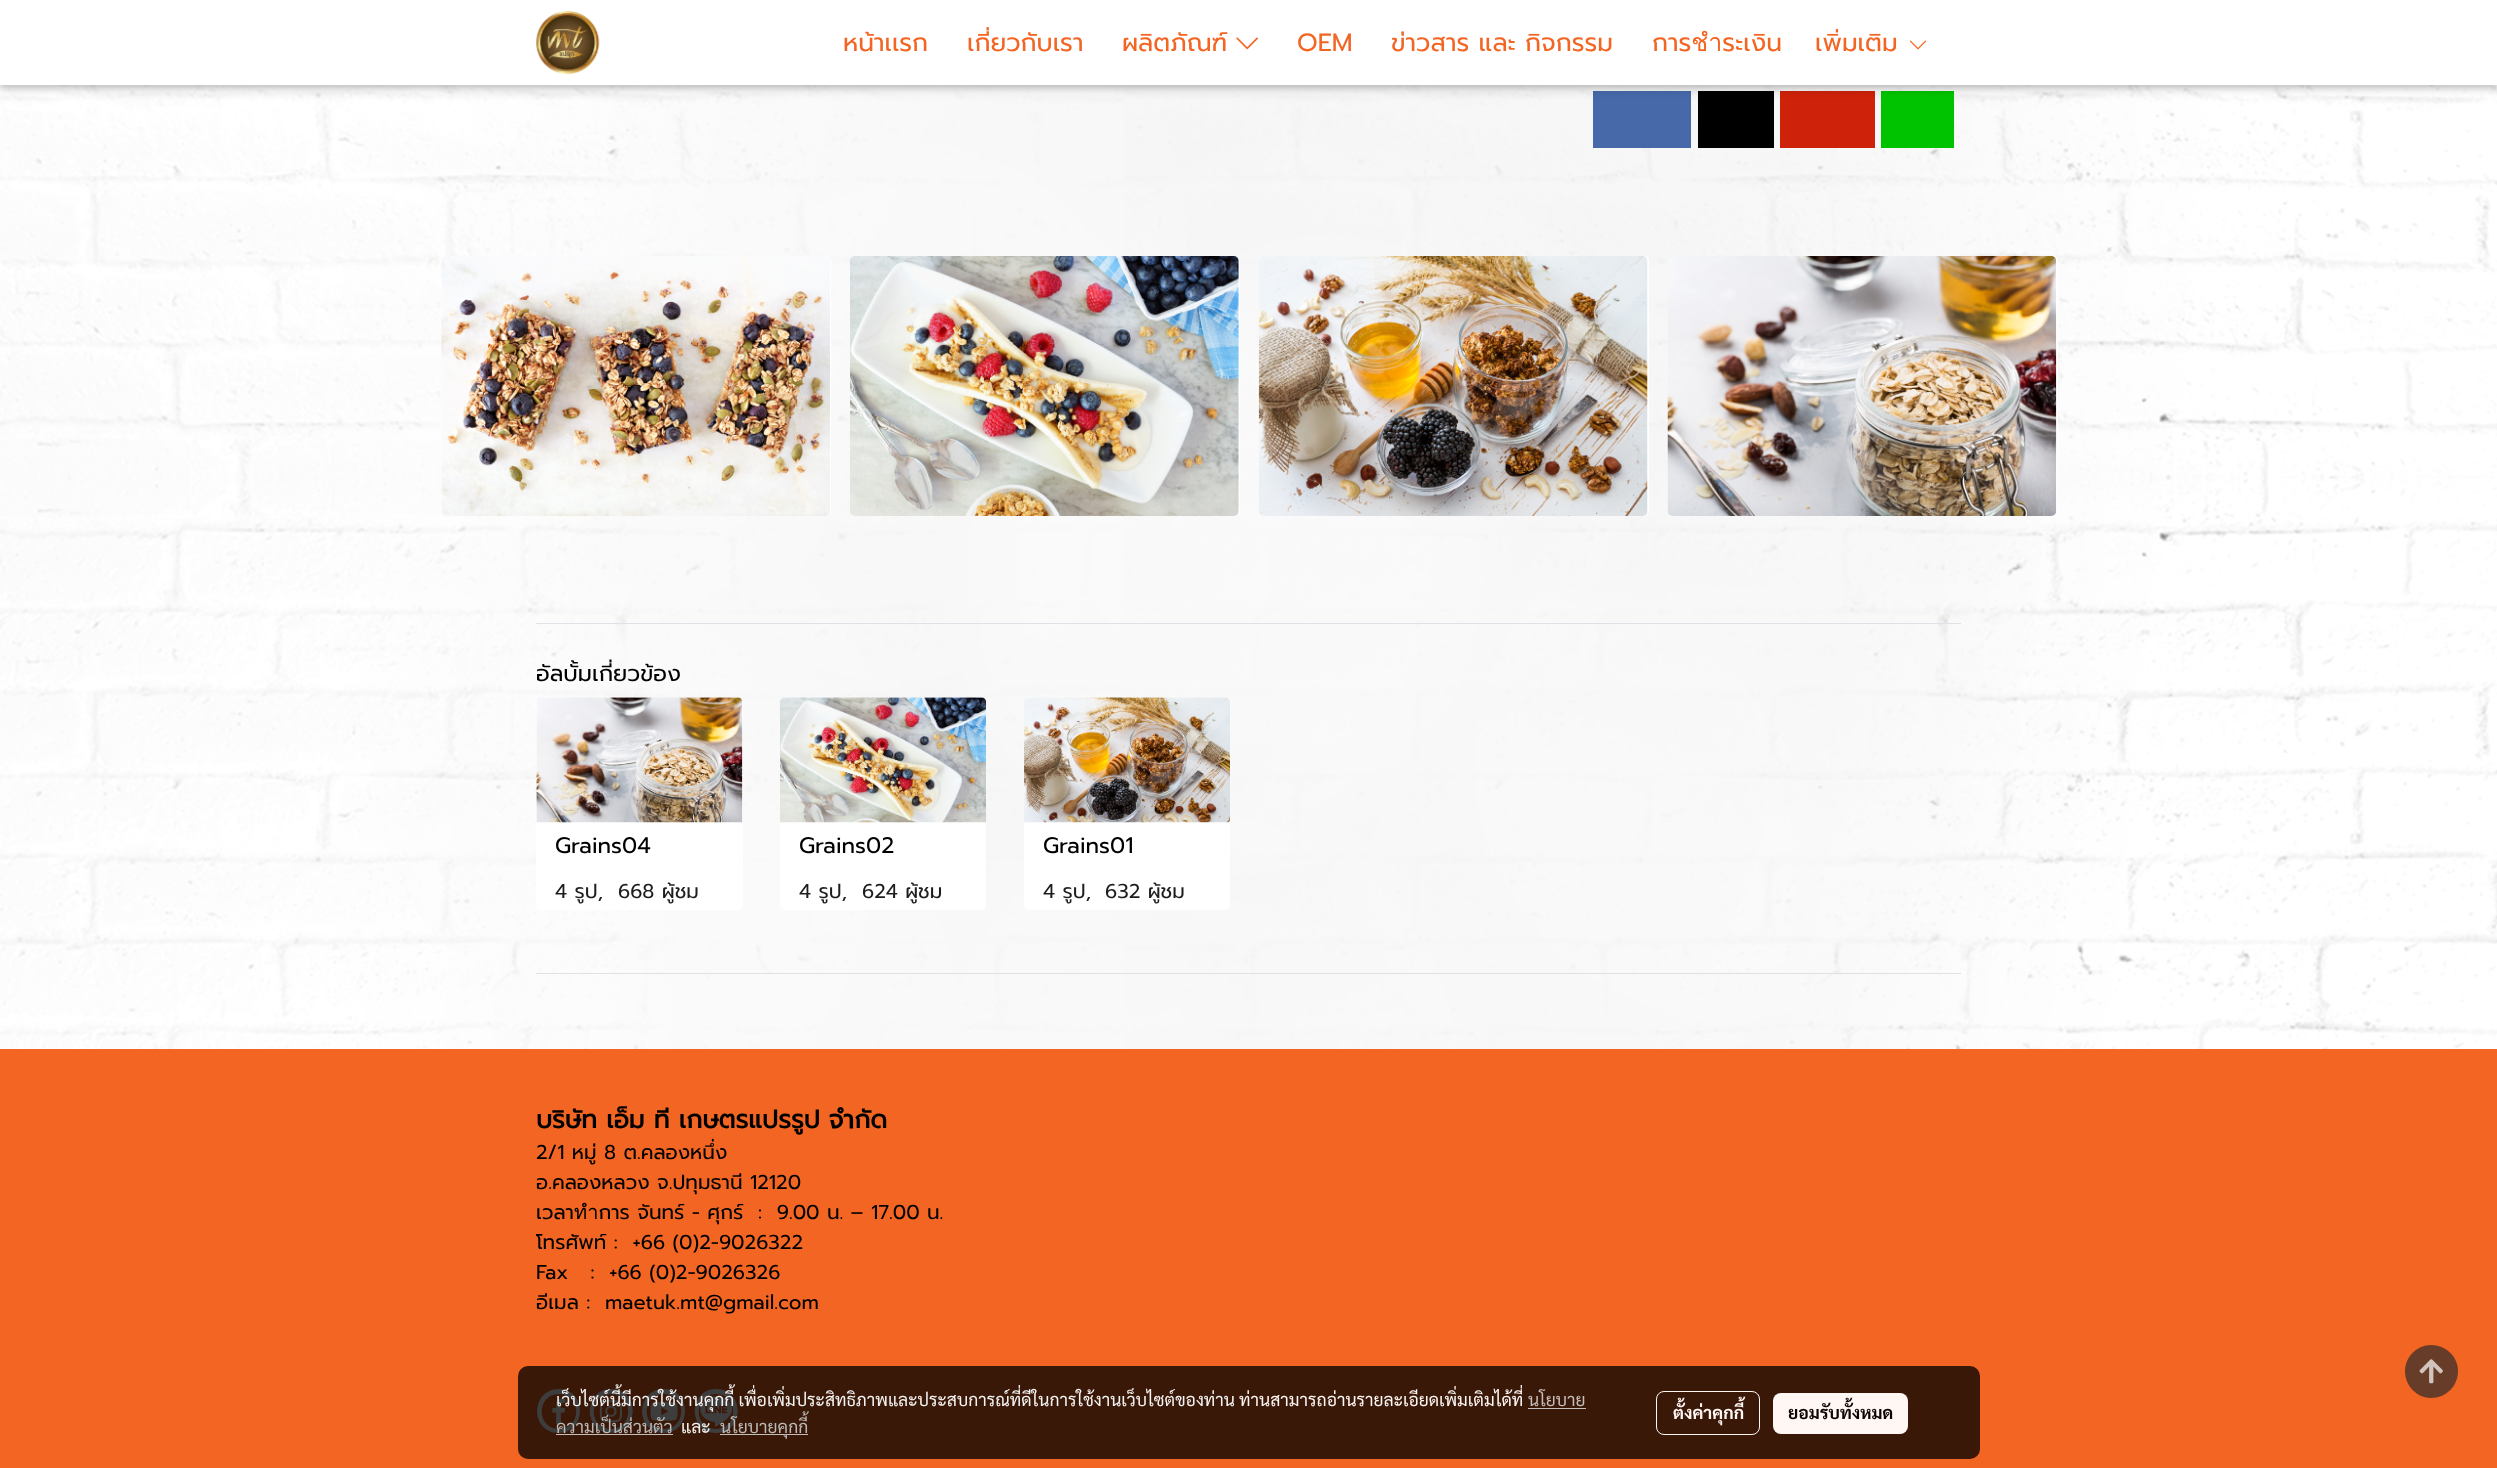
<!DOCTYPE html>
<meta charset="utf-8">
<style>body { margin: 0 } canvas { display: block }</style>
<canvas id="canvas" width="2497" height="1468"></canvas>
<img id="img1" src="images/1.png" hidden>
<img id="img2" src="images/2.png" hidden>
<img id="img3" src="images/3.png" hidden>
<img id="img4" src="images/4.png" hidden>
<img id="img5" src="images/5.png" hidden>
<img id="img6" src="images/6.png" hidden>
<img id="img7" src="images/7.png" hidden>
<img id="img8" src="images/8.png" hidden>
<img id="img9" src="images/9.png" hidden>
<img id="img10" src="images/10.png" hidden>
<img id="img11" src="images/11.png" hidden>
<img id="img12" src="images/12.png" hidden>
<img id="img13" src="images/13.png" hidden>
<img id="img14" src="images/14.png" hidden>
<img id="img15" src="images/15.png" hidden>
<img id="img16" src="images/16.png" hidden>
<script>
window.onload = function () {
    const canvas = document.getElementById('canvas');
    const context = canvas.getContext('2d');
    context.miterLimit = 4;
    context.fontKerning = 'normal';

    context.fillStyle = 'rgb(255, 255, 255)';
    context.fillRect(0, 0, 2497, 1468);
    context.drawImage(document.getElementById('img1'), 0, 85, 2497, 964);
    context.fillStyle = 'rgb(71, 105, 169)';
    context.fillRect(1593, 91, 98, 57);
    context.fillStyle = 'rgb(0, 0, 0)';
    context.fillRect(1698, 91, 76, 57);
    context.fillStyle = 'rgb(206, 34, 10)';
    context.fillRect(1780, 91, 95, 57);
    context.fillStyle = 'rgb(0, 195, 0)';
    context.fillRect(1881, 91, 73, 57);
    context.fillStyle = 'rgba(0, 0, 0, 0.12)';
    context.filter = 'blur(6px)';
    context.beginPath();
    context.rect(0, 3, 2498, 85);
    context.fill();
    context.filter = 'none';
    context.fillStyle = 'rgba(0, 0, 0, 0.16)';
    context.filter = 'blur(3px)';
    context.beginPath();
    context.rect(0, 3, 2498, 85);
    context.fill();
    context.filter = 'none';
    context.fillStyle = 'rgb(255, 255, 255)';
    context.fillRect(0, 0, 2497, 85);
    context.drawImage(document.getElementById('img2'), 536, 11, 64, 64);
    context.drawImage(document.getElementById('img3'), 1236, 37, 22, 13);
    context.drawImage(document.getElementById('img4'), 1909, 40, 18, 10);
    context.beginPath();
    context.roundRect(441, 256, 390, 260, 5);
    context.fill();
    context.drawImage(document.getElementById('img5'), 441, 256, 389, 260);
    context.beginPath();
    context.roundRect(850, 256, 390, 260, 5);
    context.fill();
    context.drawImage(document.getElementById('img6'), 850, 256, 389, 260);
    context.beginPath();
    context.roundRect(1259, 256, 390, 260, 5);
    context.fill();
    context.drawImage(document.getElementById('img7'), 1258, 256, 390, 260);
    context.beginPath();
    context.roundRect(1668, 256, 390, 260, 5);
    context.fill();
    context.drawImage(document.getElementById('img8'), 1667, 256, 390, 260);
    context.fillStyle = 'rgb(222, 226, 230)';
    context.fillRect(536, 623, 1425, 1);
    context.fillStyle = 'rgb(255, 255, 255)';
    context.beginPath();
    context.roundRect(536, 698, 207, 212, 5);
    context.fill();
    context.drawImage(document.getElementById('img9'), 536, 697, 207, 126);
    context.beginPath();
    context.roundRect(780, 698, 206, 212, 5);
    context.fill();
    context.drawImage(document.getElementById('img10'), 780, 697, 206, 126);
    context.beginPath();
    context.roundRect(1024, 698, 206, 212, 5);
    context.fill();
    context.drawImage(document.getElementById('img11'), 1024, 697, 206, 126);
    context.fillStyle = 'rgb(222, 226, 230)';
    context.fillRect(536, 973, 1425, 1);
    context.fillStyle = 'rgb(243, 101, 35)';
    context.fillRect(0, 1049, 2497, 419);
    context.fillStyle = 'rgb(255, 255, 255)';
    context.beginPath();
    context.moveTo(559, 1389);
    context.bezierCurveTo(530, 1389, 530, 1433, 559, 1433);
    context.bezierCurveTo(587, 1433, 587, 1389, 559, 1389);
    context.closePath();
    context.moveTo(559, 1429);
    context.bezierCurveTo(536, 1429, 536, 1394, 559, 1394);
    context.bezierCurveTo(582, 1394, 582, 1429, 559, 1429);
    context.closePath();
    context.fill();
    context.drawImage(document.getElementById('img12'), 552, 1398, 14, 26);
    context.beginPath();
    context.moveTo(611, 1389);
    context.bezierCurveTo(583, 1389, 583, 1433, 611, 1433);
    context.bezierCurveTo(640, 1433, 640, 1389, 611, 1389);
    context.closePath();
    context.moveTo(611, 1429);
    context.bezierCurveTo(588, 1429, 588, 1394, 611, 1394);
    context.bezierCurveTo(634, 1394, 634, 1429, 611, 1429);
    context.closePath();
    context.fill();
    context.drawImage(document.getElementById('img13'), 599, 1400, 23, 23);
    context.beginPath();
    context.moveTo(664, 1389);
    context.bezierCurveTo(635, 1389, 635, 1433, 664, 1433);
    context.bezierCurveTo(692, 1433, 692, 1389, 664, 1389);
    context.closePath();
    context.moveTo(664, 1429);
    context.bezierCurveTo(641, 1429, 641, 1394, 664, 1394);
    context.bezierCurveTo(687, 1394, 687, 1429, 664, 1429);
    context.closePath();
    context.fill();
    context.drawImage(document.getElementById('img14'), 650, 1401, 28, 20);
    context.beginPath();
    context.moveTo(716, 1389);
    context.bezierCurveTo(688, 1389, 688, 1433, 716, 1433);
    context.bezierCurveTo(745, 1433, 745, 1389, 716, 1389);
    context.closePath();
    context.moveTo(716, 1429);
    context.bezierCurveTo(693, 1429, 693, 1394, 716, 1394);
    context.bezierCurveTo(739, 1394, 739, 1429, 716, 1429);
    context.closePath();
    context.fill();
    context.drawImage(document.getElementById('img15'), 694, 1396, 39, 31);
    context.fillStyle = 'rgb(103, 60, 40)';
    context.beginPath();
    context.moveTo(2431, 1345);
    context.bezierCurveTo(2417, 1345, 2405, 1357, 2405, 1371);
    context.bezierCurveTo(2405, 1386, 2417, 1398, 2431, 1398);
    context.bezierCurveTo(2446, 1398, 2458, 1386, 2458, 1371);
    context.bezierCurveTo(2458, 1357, 2446, 1345, 2431, 1345);
    context.closePath();
    context.fill();
    context.drawImage(document.getElementById('img16'), 2419, 1359, 24, 25);
    context.fillStyle = 'rgba(0, 0, 0, 0.76)';
    context.beginPath();
    context.roundRect(518, 1366, 1462, 93, 10);
    context.fill();
    context.fillStyle = 'rgb(196, 189, 186)';
    context.fillRect(1528, 1408, 58, 1);
    context.fillRect(556, 1434, 117, 1);
    context.fillRect(720, 1434, 88, 1);
    context.beginPath();
    context.roundRect(1656.5, 1391.5, 103, 43, 7.5);
    context.strokeStyle = 'rgb(254, 247, 244)';
    context.stroke();
    context.fillStyle = 'rgb(254, 247, 244)';
    context.beginPath();
    context.roundRect(1773, 1393, 135, 41, 8);
    context.fill();
    context.font = '25px Prompt';
    context.fillStyle = 'rgb(243, 101, 35)';
    context.fillText('หน้าเเรก', 843, 51);
    context.fillText('เกี่ยวกับเรา', 967, 51);
    context.fillText('ผลิตภัณฑ์', 1122, 51);
    context.fillText('OEM', 1297, 51);
    context.fillText('ข่าวสาร และ กิจกรรม', 1391, 51);
    context.fillText('การชำระเงิน', 1652, 51);
    context.fillText('เพิ่มเติม', 1815, 51);
    context.font = '22.5px Prompt';
    context.fillStyle = 'rgb(0, 0, 0)';
    context.fillText('อัลบั้มเกี่ยวข้อง', 536, 681);
    context.fillText('Grains04', 555, 853);
    context.font = '20px Prompt';
    context.fillStyle = 'rgb(30, 30, 30)';
    context.fillText('4 รูป,', 555, 898);
    context.fillText('668 ผู้ชม', 618, 898);
    context.font = '22.5px Prompt';
    context.fillStyle = 'rgb(0, 0, 0)';
    context.fillText('Grains02', 799, 853);
    context.font = '20px Prompt';
    context.fillStyle = 'rgb(30, 30, 30)';
    context.fillText('4 รูป,', 799, 898);
    context.fillText('624 ผู้ชม', 862, 898);
    context.font = '22.5px Prompt';
    context.fillStyle = 'rgb(0, 0, 0)';
    context.fillText('Grains01', 1043, 853);
    context.font = '20px Prompt';
    context.fillStyle = 'rgb(30, 30, 30)';
    context.fillText('4 รูป,', 1043, 898);
    context.fillText('632 ผู้ชม', 1105, 898);
    context.font = 'bold 25px Prompt';
    context.fillStyle = 'rgb(0, 0, 0)';
    context.fillText('บริษัท เอ็ม ที เกษตรแปรรูป จำกัด', 536, 1128);
    context.font = '20px Prompt';
    context.fillText('2/1 หมู่ 8 ต.คลองหนึ่ง', 536, 1159);
    context.fillText('อ.คลองหลวง จ.ปทุมธานี 12120', 536, 1189);
    context.fillText('เวลาทำการ จันทร์ - ศุกร์  :  9.00 น. – 17.00 น.', 536, 1219);
    context.fillText('โทรศัพท์ :  +66 (0)2-9026322', 536, 1249);
    context.fillText('Fax   :  +66 (0)2-9026326', 536, 1279);
    context.fillText('อีเมล :', 536, 1309);
    context.fillText('maetuk.mt@gmail.com', 605, 1309);
    context.font = '17.5px Sarabun';
    context.fillStyle = 'rgb(245, 244, 243)';
    context.fillText('เว็บไซต์นี้มีการใช้งานคุกกี้ เพื่อเพิ่มประสิทธิภาพและประสบการณ์ที่ดีในการใช้งานเว็บไซต์ของท่าน', 556, 1406);
    context.fillStyle = 'rgb(254, 247, 244)';
    context.fillText('ท่านสามารถอ่านรายละเอียดเพิ่มเติมได้ที่', 1239, 1406);
    context.fillStyle = 'rgb(196, 189, 186)';
    context.fillText('นโยบาย', 1528, 1406);
    context.fillStyle = 'rgb(187, 186, 185)';
    context.fillText('ความเป็นส่วนตัว', 556, 1433);
    context.fillStyle = 'rgb(245, 244, 243)';
    context.fillText('และ', 681, 1433);
    context.fillStyle = 'rgb(187, 186, 185)';
    context.fillText('นโยบายคุกกี้', 720, 1433);
    context.font = 'bold 17.5px Sarabun';
    context.fillStyle = 'rgb(254, 247, 244)';
    context.fillText('ตั้งค่าคุกกี้', 1673, 1419);
    context.fillStyle = 'rgb(12, 5, 2)';
    context.fillText('ยอมรับทั้งหมด', 1788, 1419);
};
</script>
